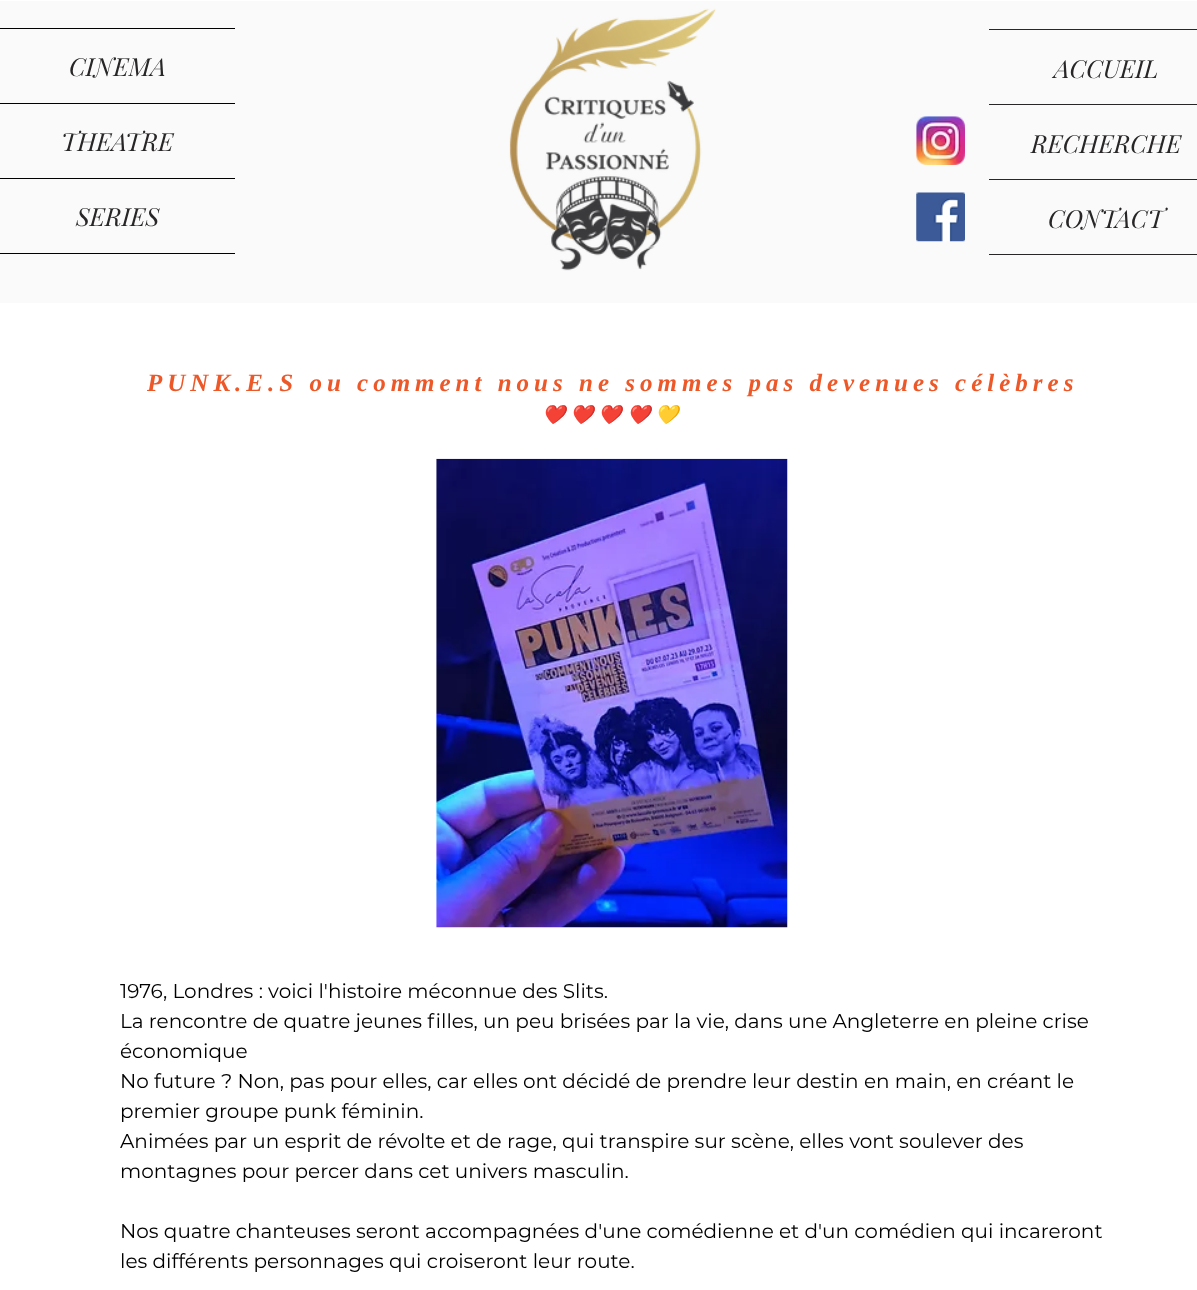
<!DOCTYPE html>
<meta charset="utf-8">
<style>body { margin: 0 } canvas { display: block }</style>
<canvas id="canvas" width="1197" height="1290"></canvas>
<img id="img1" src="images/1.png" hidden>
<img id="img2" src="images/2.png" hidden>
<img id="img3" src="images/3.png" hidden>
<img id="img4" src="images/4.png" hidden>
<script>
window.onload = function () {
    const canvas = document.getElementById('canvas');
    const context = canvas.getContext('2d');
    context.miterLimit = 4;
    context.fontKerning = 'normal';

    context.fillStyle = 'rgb(255, 255, 255)';
    context.fillRect(0, 0, 1197, 1290);
    context.fillStyle = 'rgb(250, 250, 250)';
    context.fillRect(0, 1, 1197, 302);
    context.fillStyle = 'rgb(0, 0, 0)';
    context.fillRect(0, 28, 235, 1);
    context.fillRect(0, 253, 235, 1);
    context.fillRect(0, 103, 235, 1);
    context.fillRect(0, 178, 235, 1);
    context.drawImage(document.getElementById('img1'), 509, 8, 207, 263);
    context.drawImage(document.getElementById('img2'), 916, 116, 49, 49);
    context.fillStyle = 'rgb(40, 38, 38)';
    context.fillRect(989, 29, 208, 1);
    context.fillRect(989, 254, 208, 1);
    context.fillRect(989, 104, 208, 1);
    context.fillRect(989, 179, 208, 1);
    context.drawImage(document.getElementById('img3'), 916, 192, 49, 50);
    context.drawImage(document.getElementById('img4'), 436, 458, 352, 470);
    context.font = 'italic 25px Playfair Display';
    context.fillText('CINEMA', 69, 76);
    context.fillText('THEATRE', 61, 151);
    context.fillText('SERIES', 76, 226);
    context.fillText('ACCUEIL', 1054, 78);
    context.fillText('RECHERCHE', 1031, 153);
    context.fillText('CONTACT', 1048, 228);
    context.letterSpacing = '5px';
    context.font = 'italic bold 25px Liberation Serif';
    context.fillStyle = 'rgb(237, 88, 41)';
    context.fillText('PUNK.E.S ou comment nous ne sommes pas devenues célèbres', 147, 391);
    context.font = 'italic bold 18.75px Noto Color Emoji';
    context.fillText('❤️❤️❤️❤️💛', 542, 421);
    context.letterSpacing = '0px';
    context.font = '20px Montserrat';
    context.fillStyle = 'rgb(0, 0, 0)';
    context.fillText('1976, Londres : voici l\'histoire méconnue des Slits.', 120, 998);
    context.fillText('La rencontre de quatre jeunes filles, un peu brisées par la vie, dans une Angleterre en pleine crise', 120, 1028);
    context.fillText('économique', 120, 1058);
    context.fillText('No future ? Non, pas pour elles, car elles ont décidé de prendre leur destin en main, en créant le', 120, 1088);
    context.fillText('premier groupe punk féminin.', 120, 1118);
    context.fillText('Animées par un esprit de révolte et de rage, qui transpire sur scène, elles vont soulever des', 120, 1148);
    context.fillText('montagnes pour percer dans cet univers masculin.', 120, 1178);
    context.fillText('Nos quatre chanteuses seront accompagnées d\'une comédienne et d\'un comédien qui incareront', 120, 1238);
    context.fillText('les différents personnages qui croiseront leur route.', 120, 1268);
};
</script>
